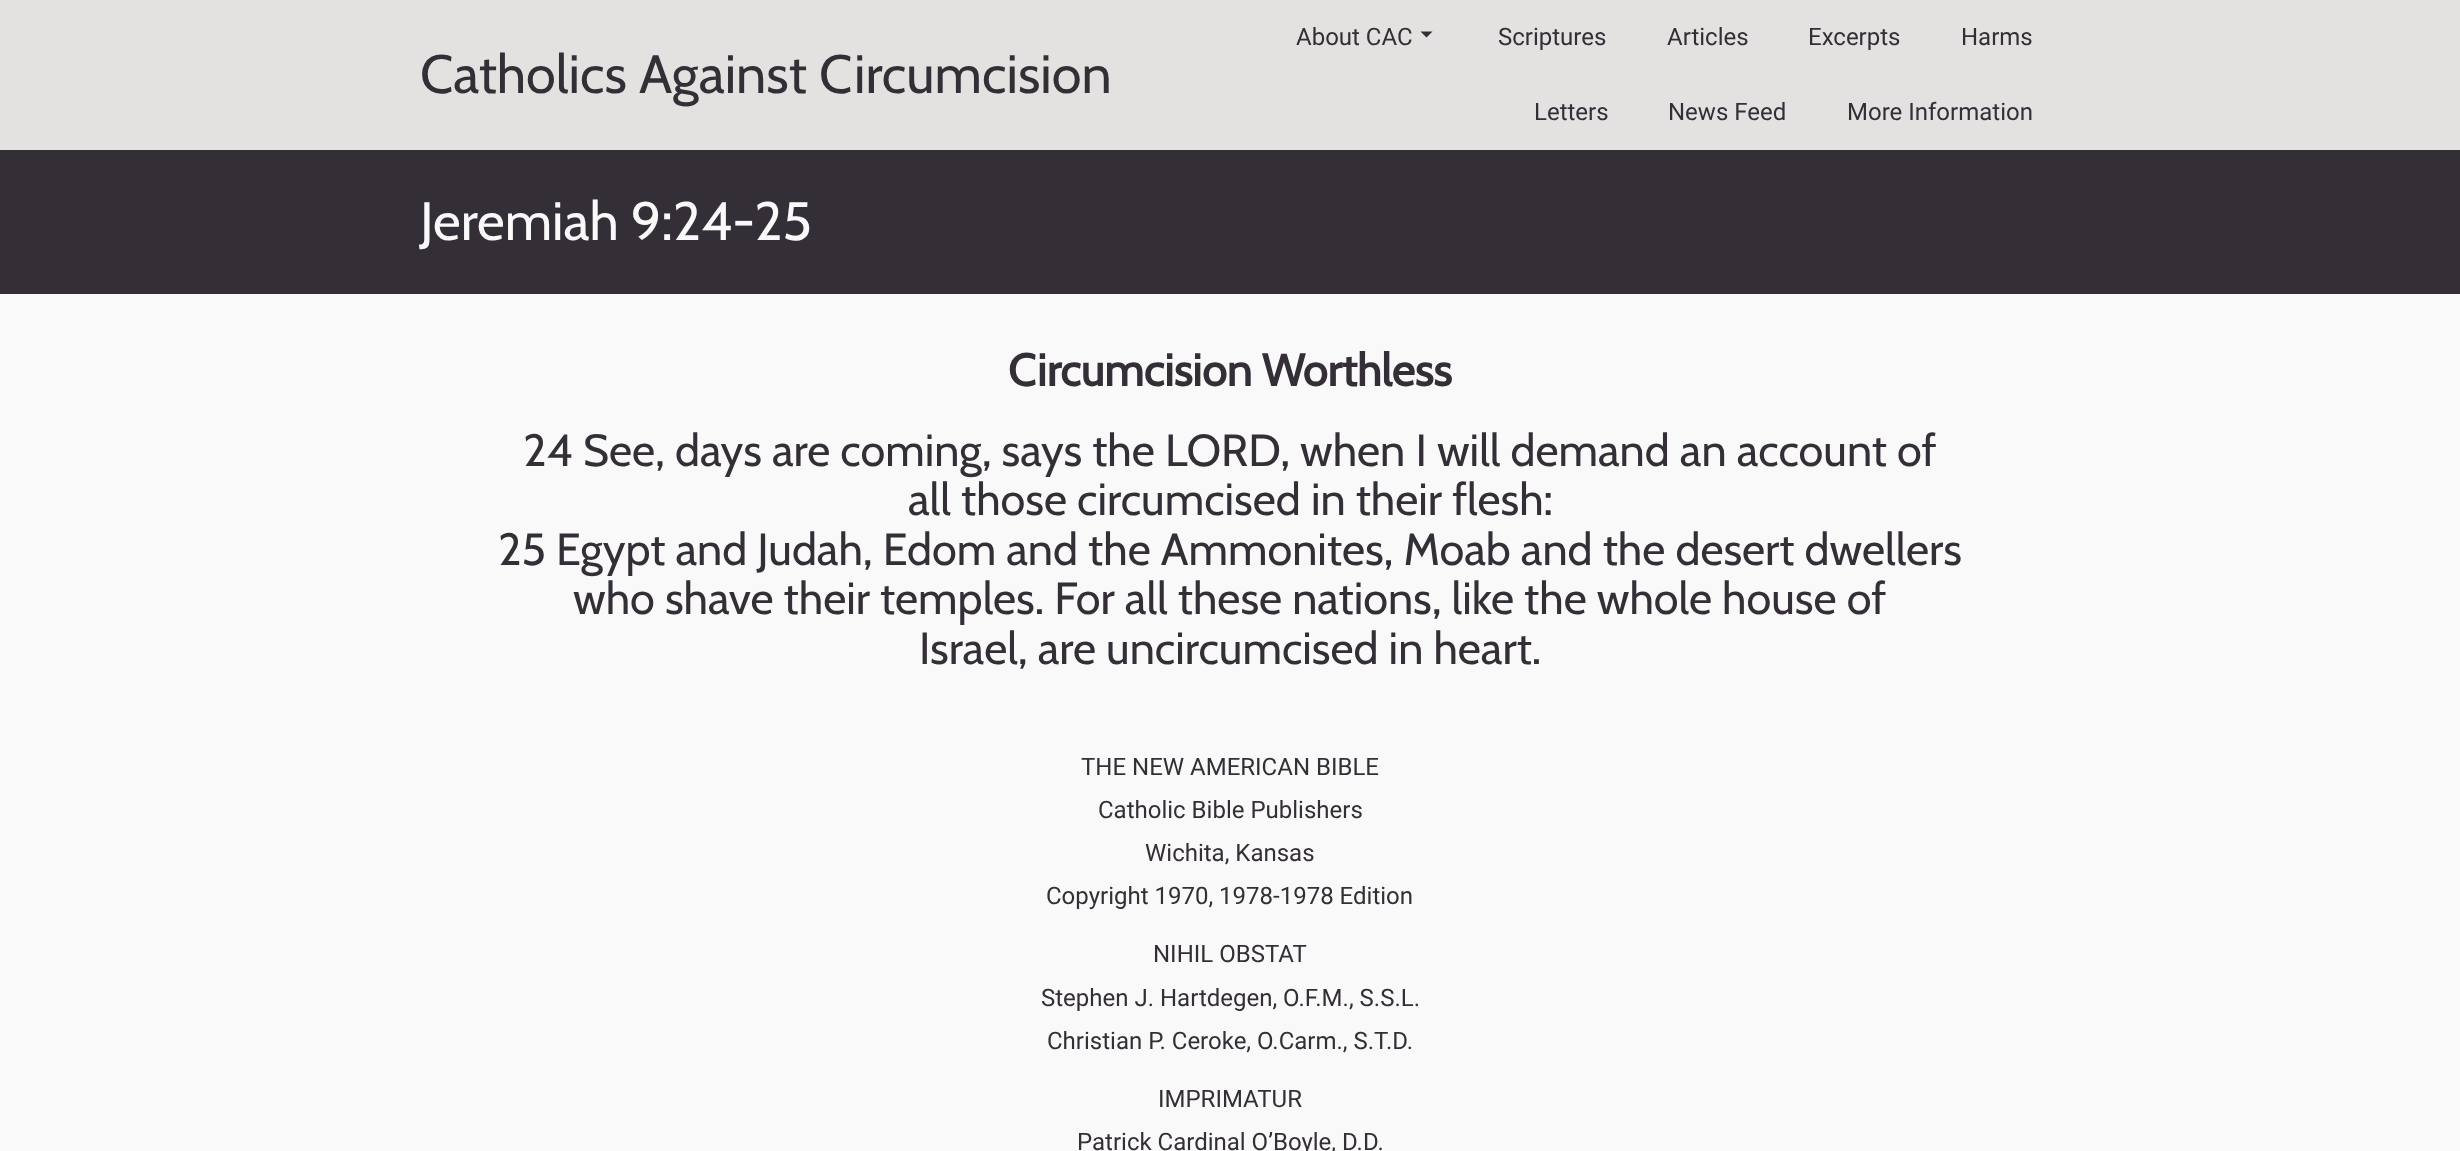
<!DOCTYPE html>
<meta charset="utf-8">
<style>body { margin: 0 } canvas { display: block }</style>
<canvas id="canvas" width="2460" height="1151"></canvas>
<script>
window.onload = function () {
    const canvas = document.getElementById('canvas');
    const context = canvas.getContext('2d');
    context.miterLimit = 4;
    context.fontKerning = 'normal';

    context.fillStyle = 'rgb(249, 249, 249)';
    context.fillRect(0, 0, 2460, 1151);
    context.fillStyle = 'rgb(228, 226, 225)';
    context.fillRect(0, 0, 2460, 150);
    context.fillStyle = 'rgb(52, 46, 55)';
    context.beginPath();
    context.moveTo(1420.5, 31.5);
    context.lineTo(1432.5, 31.5);
    context.lineTo(1426.5, 37.5);
    context.closePath();
    context.fill();
    context.fillRect(0, 150, 2460, 144);
    context.font = '54px Cabin';
    context.fillText('Catholics Against Circumcision', 420, 93);
    context.font = '24px Roboto';
    context.fillText('About CAC', 1296, 45);
    context.fillText('Scriptures', 1498, 45);
    context.fillText('Articles', 1667, 45);
    context.fillText('Excerpts', 1808, 45);
    context.fillText('Harms', 1961, 45);
    context.fillText('Letters', 1534, 120);
    context.fillText('News Feed', 1668, 120);
    context.fillText('More Information', 1847, 120);
    context.font = '54px Cabin';
    context.fillStyle = 'rgb(249, 249, 249)';
    context.fillText('Jeremiah 9:24-25', 420, 240);
    context.font = 'bold 45px Cabin';
    context.fillStyle = 'rgb(52, 46, 55)';
    context.fillText('Circumcision Worthless', 1008, 386);
    context.font = '45px Cabin';
    context.fillText('24 See, days are coming, says the LORD, when I will demand an account of', 523, 466);
    context.fillText('all those circumcised in their flesh:', 908, 515);
    context.fillText('25 Egypt and Judah, Edom and the Ammonites, Moab and the desert dwellers', 498, 565);
    context.fillText('who shave their temples. For all these nations, like the whole house of', 573, 614);
    context.fillText('Israel, are uncircumcised in heart.', 919, 664);
    context.font = '24px Roboto';
    context.fillText('THE NEW AMERICAN BIBLE', 1081, 775);
    context.fillText('Catholic Bible Publishers', 1098, 818);
    context.fillText('Wichita, Kansas', 1145, 861);
    context.fillText('Copyright 1970, 1978-1978 Edition', 1046, 904);
    context.fillText('NIHIL OBSTAT', 1153, 962);
    context.fillText('Stephen J. Hartdegen, O.F.M., S.S.L.', 1041, 1006);
    context.fillText('Christian P. Ceroke, O.Carm., S.T.D.', 1047, 1049);
    context.fillText('IMPRIMATUR', 1158, 1107);
    context.fillText('Patrick Cardinal O’Boyle, D.D.', 1077, 1150);
};
</script>
